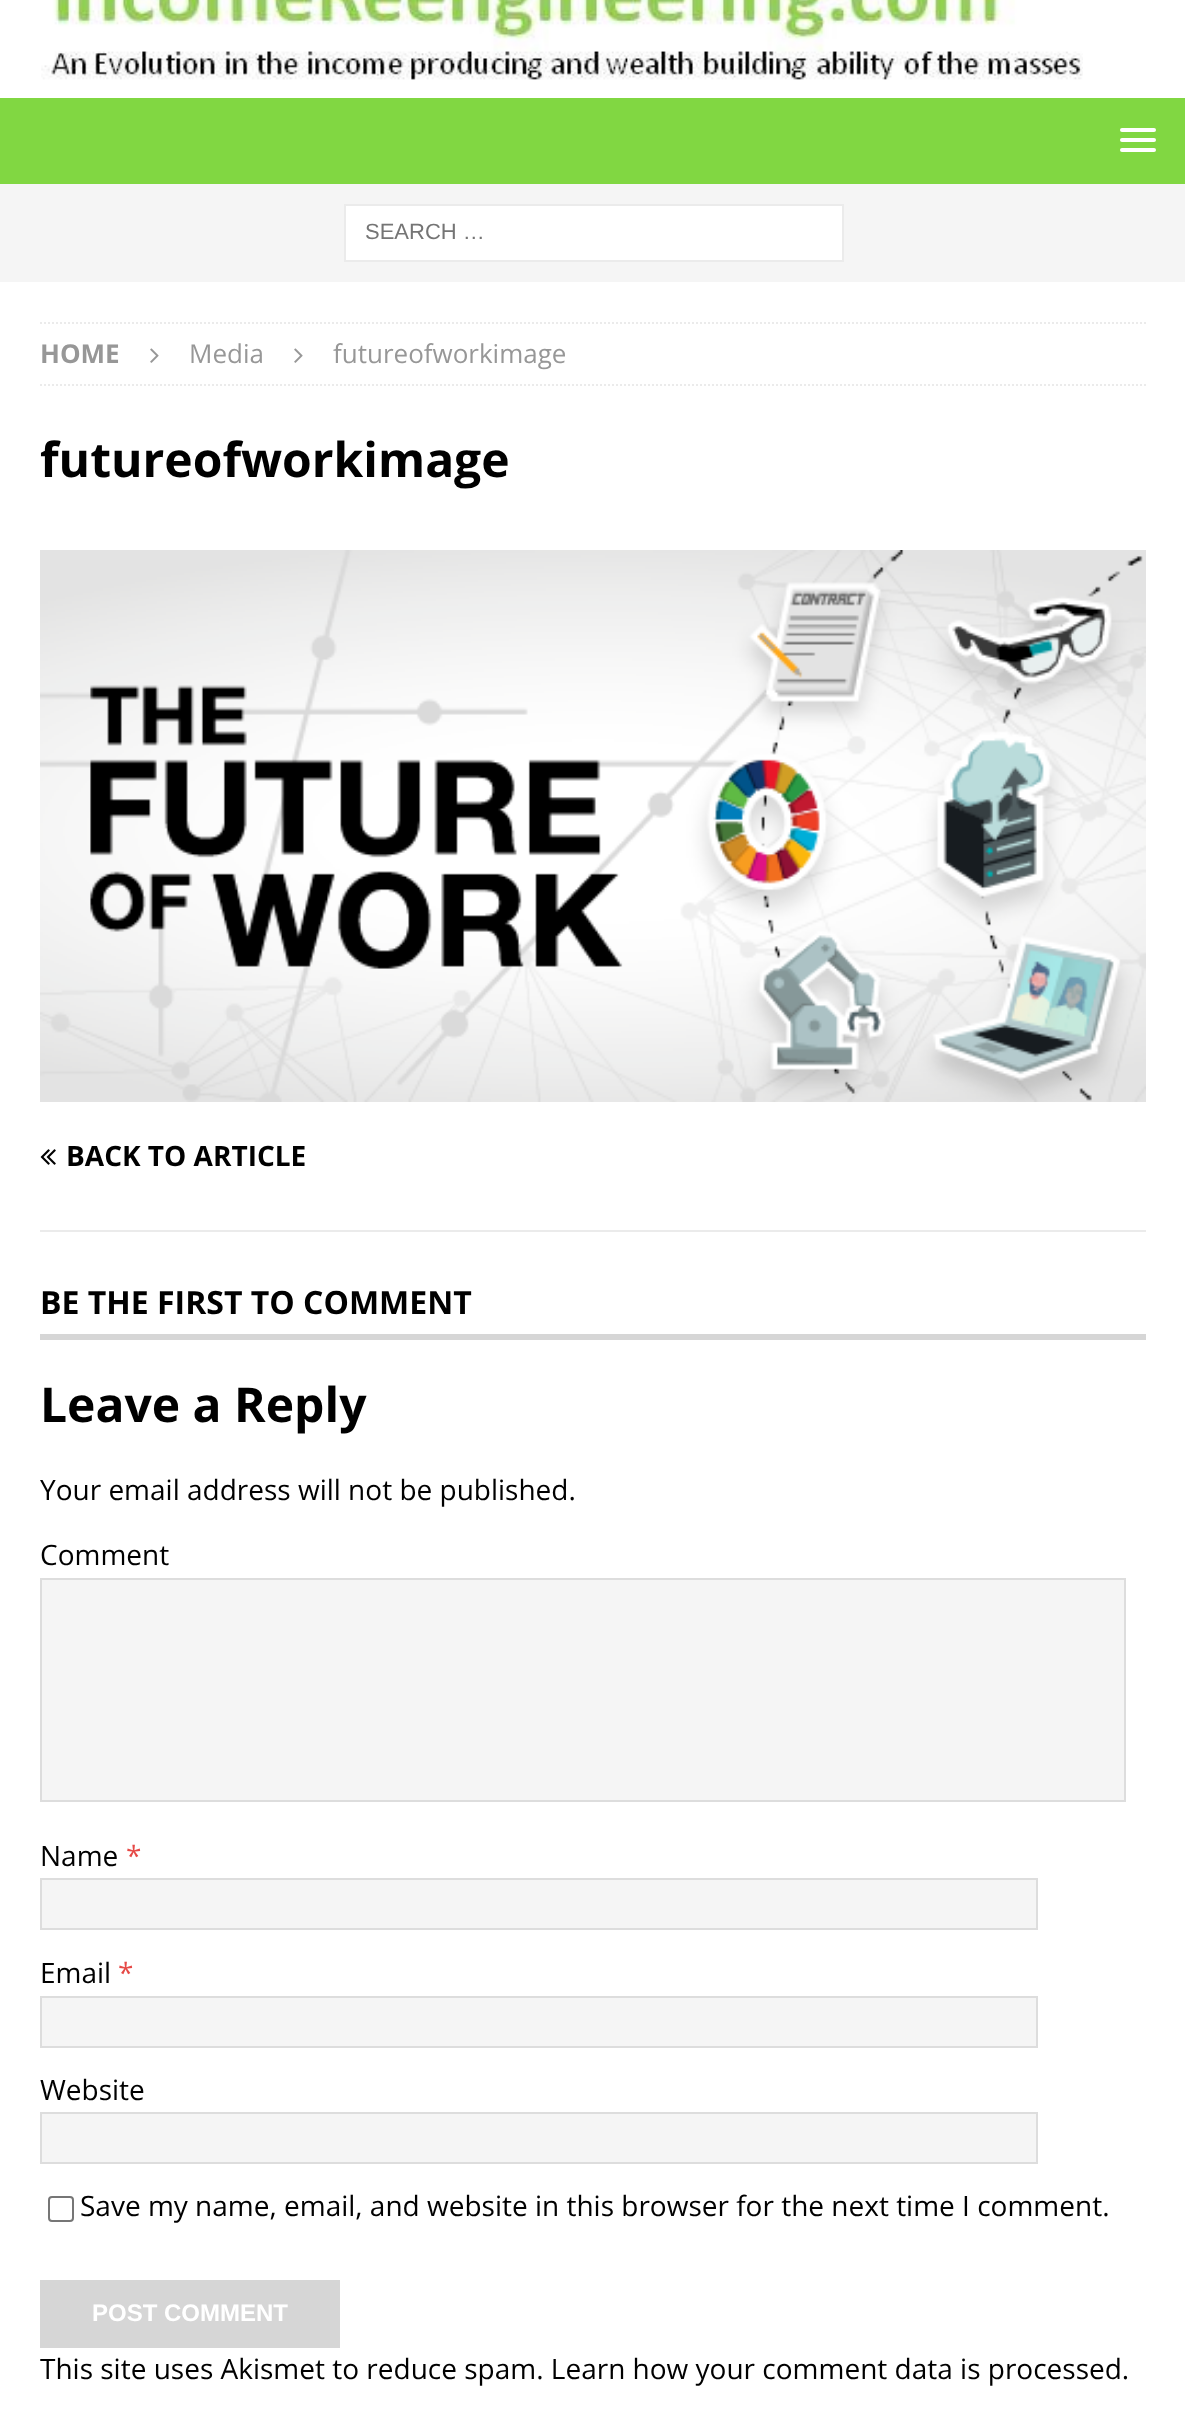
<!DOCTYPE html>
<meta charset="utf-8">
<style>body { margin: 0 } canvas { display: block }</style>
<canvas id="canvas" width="1185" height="2410"></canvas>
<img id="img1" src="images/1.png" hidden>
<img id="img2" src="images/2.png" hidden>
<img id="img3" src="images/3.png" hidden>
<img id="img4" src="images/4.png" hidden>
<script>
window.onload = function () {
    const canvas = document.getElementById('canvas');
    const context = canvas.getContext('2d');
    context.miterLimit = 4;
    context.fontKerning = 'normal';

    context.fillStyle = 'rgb(255, 255, 255)';
    context.fillRect(0, 0, 1185, 2410);
    context.drawImage(document.getElementById('img1'), 41, 0, 1042, 80);
    context.fillStyle = 'rgb(129, 215, 66)';
    context.fillRect(0, 98, 1185, 86);
    context.fillStyle = 'rgb(255, 255, 255)';
    context.beginPath();
    context.roundRect(1120, 128, 36, 4, 2);
    context.fill();
    context.beginPath();
    context.roundRect(1120, 138, 36, 4, 2);
    context.fill();
    context.beginPath();
    context.roundRect(1120, 148, 36, 4, 2);
    context.fill();
    context.fillStyle = 'rgb(245, 245, 245)';
    context.fillRect(0, 184, 1185, 98);
    context.fillStyle = 'rgb(255, 255, 255)';
    context.beginPath();
    context.rect(345, 205, 498, 56);
    context.fill();
    context.strokeStyle = 'rgb(235, 235, 235)';
    context.lineWidth = 2;
    context.stroke();
    context.beginPath();
    context.moveTo(40, 323);
    context.lineTo(1146, 323);
    context.setLineDash([2, 2]);
    context.stroke();
    context.beginPath();
    context.moveTo(40, 385);
    context.lineTo(1146, 385);
    context.stroke();
    context.drawImage(document.getElementById('img2'), 150, 348, 9, 15);
    context.drawImage(document.getElementById('img2'), 294, 348, 9, 15);
    context.drawImage(document.getElementById('img3'), 40, 550, 1106, 552);
    context.fillStyle = 'rgb(235, 235, 235)';
    context.fillRect(40, 1230, 1106, 2);
    context.drawImage(document.getElementById('img4'), 40, 1149, 16, 16);
    context.fillStyle = 'rgb(214, 214, 214)';
    context.fillRect(40, 1334, 1106, 6);
    context.fillStyle = 'rgb(245, 245, 245)';
    context.beginPath();
    context.rect(41, 1579, 1084, 222);
    context.fill();
    context.strokeStyle = 'rgb(221, 221, 221)';
    context.setLineDash([]);
    context.stroke();
    context.beginPath();
    context.rect(41, 1879, 996, 50);
    context.fill();
    context.stroke();
    context.beginPath();
    context.rect(41, 1997, 996, 50);
    context.fill();
    context.stroke();
    context.beginPath();
    context.rect(41, 2113, 996, 50);
    context.fill();
    context.stroke();
    context.beginPath();
    context.roundRect(49, 2197, 24, 24, 3);
    context.strokeStyle = 'rgb(118, 118, 118)';
    context.stroke();
    context.fillStyle = 'rgb(214, 214, 214)';
    context.fillRect(40, 2280, 300, 68);
    context.font = '22px Liberation Sans';
    context.fillStyle = 'rgb(117, 117, 117)';
    context.fillText('SEARCH …', 365, 239);
    context.font = 'bold 26px Open Sans';
    context.fillStyle = 'rgb(151, 151, 151)';
    context.fillText('HOME', 40, 363);
    context.font = '26px Open Sans';
    context.fillText('Media', 189, 363);
    context.fillText('futureofworkimage', 333, 363);
    context.font = 'bold 48px Open Sans';
    context.fillStyle = 'rgb(0, 0, 0)';
    context.fillText('futureofworkimage', 40, 477);
    context.font = 'bold 28px Open Sans';
    context.fillText('BACK TO ARTICLE', 66, 1166);
    context.font = 'bold 32px Open Sans';
    context.fillText('BE THE FIRST TO COMMENT', 40, 1314);
    context.font = 'bold 48px Open Sans';
    context.fillText('Leave a Reply', 40, 1422);
    context.font = '28px Open Sans';
    context.fillText('Your email address will not be published.', 40, 1500);
    context.fillText('Comment', 40, 1565);
    context.fillText('Name', 40, 1866);
    context.fillStyle = 'rgb(230, 73, 70)';
    context.fillText('*', 126, 1866);
    context.fillStyle = 'rgb(0, 0, 0)';
    context.fillText('Email', 40, 1983);
    context.fillStyle = 'rgb(230, 73, 70)';
    context.fillText('*', 118, 1983);
    context.fillStyle = 'rgb(0, 0, 0)';
    context.fillText('Website', 40, 2100);
    context.fillText('Save my name, email, and website in this browser for the next time I comment.', 80, 2216);
    context.font = 'bold 24px Liberation Sans';
    context.fillStyle = 'rgb(255, 255, 255)';
    context.fillText('POST COMMENT', 92, 2321);
    context.font = '28px Open Sans';
    context.fillStyle = 'rgb(0, 0, 0)';
    context.fillText('This site uses Akismet to reduce spam. Learn how your comment data is processed.', 40, 2379);
};
</script>
